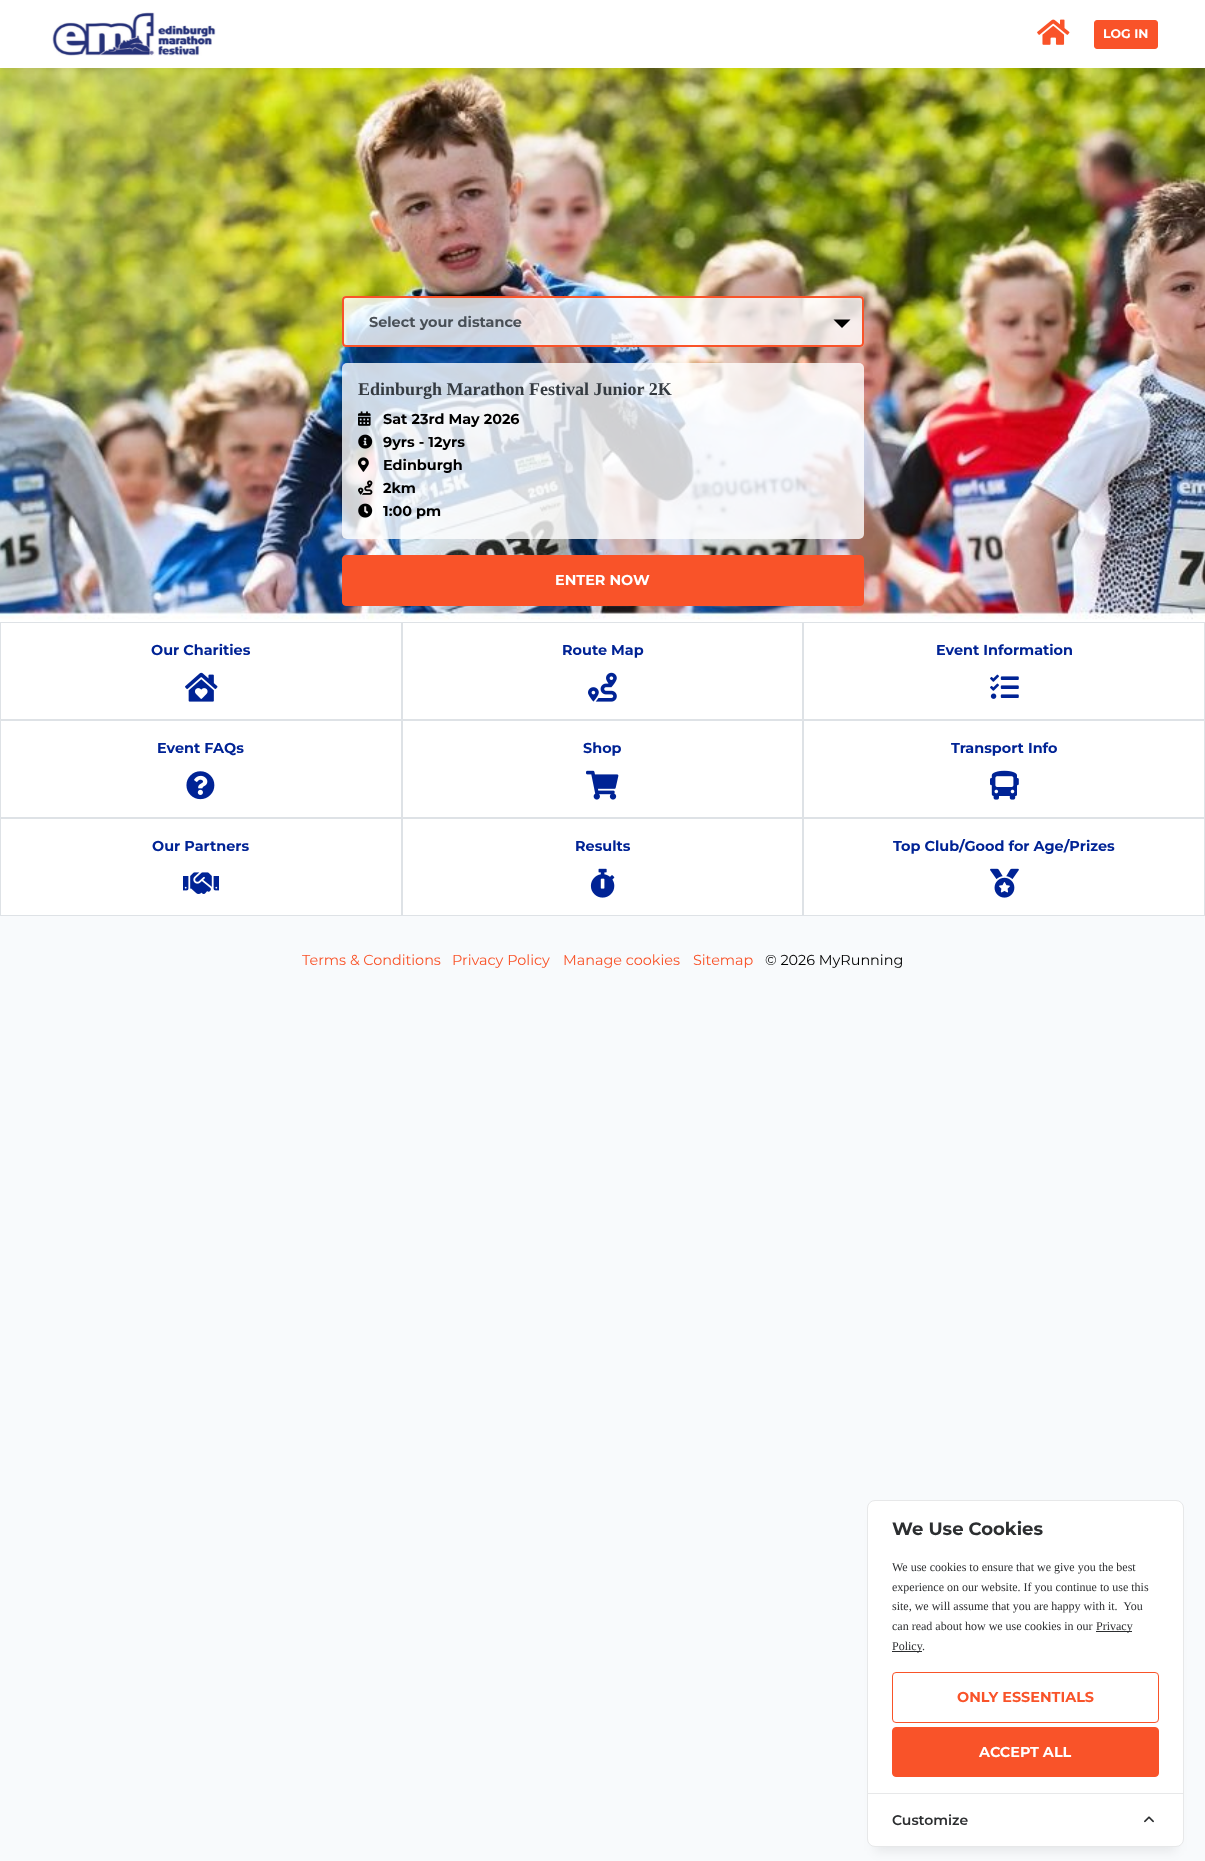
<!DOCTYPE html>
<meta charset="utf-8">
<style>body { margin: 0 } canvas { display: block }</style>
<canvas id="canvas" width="1205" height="1861"></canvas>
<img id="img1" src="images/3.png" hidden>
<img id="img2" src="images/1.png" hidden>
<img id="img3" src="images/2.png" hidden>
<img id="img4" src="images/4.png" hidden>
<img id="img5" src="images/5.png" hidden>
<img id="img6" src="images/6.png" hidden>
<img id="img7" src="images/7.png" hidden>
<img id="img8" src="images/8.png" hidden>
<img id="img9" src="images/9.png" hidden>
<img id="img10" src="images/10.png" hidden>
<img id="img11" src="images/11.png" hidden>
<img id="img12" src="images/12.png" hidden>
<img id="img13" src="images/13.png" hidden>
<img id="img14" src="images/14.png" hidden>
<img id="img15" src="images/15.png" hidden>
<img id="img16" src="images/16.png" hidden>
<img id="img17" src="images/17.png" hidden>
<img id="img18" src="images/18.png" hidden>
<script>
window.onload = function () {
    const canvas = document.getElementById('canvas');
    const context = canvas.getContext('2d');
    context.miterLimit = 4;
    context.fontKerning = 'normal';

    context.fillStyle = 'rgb(248, 250, 252)';
    context.fillRect(0, 0, 1205, 1861);
    context.drawImage(document.getElementById('img1'), 0, 68, 1205, 554);
    context.fillStyle = 'rgba(0, 0, 0, 0.07)';
    context.filter = 'blur(2px)';
    context.beginPath();
    context.rect(0, 2, 1205, 68);
    context.fill();
    context.filter = 'none';
    context.fillStyle = 'rgb(255, 255, 255)';
    context.fillRect(0, 0, 1205, 68);
    context.drawImage(document.getElementById('img2'), 52, 12, 164, 44);
    context.drawImage(document.getElementById('img3'), 1037, 19, 33, 26);
    context.fillStyle = 'rgb(249, 83, 41)';
    context.beginPath();
    context.roundRect(1094.5, 20.5, 63, 28, 2.5);
    context.fill();
    context.strokeStyle = 'rgb(249, 83, 41)';
    context.stroke();
    context.fillStyle = 'rgba(255, 255, 255, 0.8)';
    context.beginPath();
    context.roundRect(342, 296, 522, 51, 4);
    context.fill();
    context.fillStyle = 'rgb(0, 0, 0)';
    context.beginPath();
    context.moveTo(833.5, 319.5);
    context.lineTo(842, 328);
    context.lineTo(850.5, 319.5);
    context.closePath();
    context.fill();
    context.beginPath();
    context.roundRect(343, 297, 520, 49, 3);
    context.lineWidth = 2;
    context.stroke();
    context.fillStyle = 'rgba(255, 255, 255, 0.8)';
    context.beginPath();
    context.roundRect(342, 363, 522, 176, 5);
    context.fill();
    context.drawImage(document.getElementById('img4'), 358, 411, 13, 15);
    context.drawImage(document.getElementById('img5'), 358, 434, 15, 15);
    context.drawImage(document.getElementById('img6'), 358, 457, 11, 15);
    context.drawImage(document.getElementById('img7'), 358, 480, 15, 15);
    context.drawImage(document.getElementById('img8'), 358, 503, 15, 15);
    context.fillStyle = 'rgb(249, 83, 41)';
    context.beginPath();
    context.roundRect(342.5, 555.5, 521, 50, 3.5);
    context.fill();
    context.lineWidth = 1;
    context.stroke();
    context.fillStyle = 'rgb(255, 255, 255)';
    context.fillRect(1, 623, 1203, 292);
    context.strokeStyle = 'rgb(222, 226, 230)';
    context.strokeRect(0.5, 622.5, 401, 97);
    context.drawImage(document.getElementById('img9'), 185, 672, 33, 30);
    context.strokeRect(402.5, 622.5, 400, 97);
    context.drawImage(document.getElementById('img10'), 588, 672, 29, 30);
    context.strokeRect(803.5, 622.5, 401, 97);
    context.drawImage(document.getElementById('img11'), 990, 674, 29, 25);
    context.strokeRect(0.5, 720.5, 401, 97);
    context.drawImage(document.getElementById('img12'), 186, 771, 29, 29);
    context.strokeRect(402.5, 720.5, 400, 97);
    context.drawImage(document.getElementById('img13'), 586, 770, 33, 30);
    context.strokeRect(803.5, 720.5, 401, 97);
    context.drawImage(document.getElementById('img14'), 990, 770, 29, 30);
    context.strokeRect(0.5, 818.5, 401, 97);
    context.drawImage(document.getElementById('img15'), 183, 872, 36, 22);
    context.strokeRect(402.5, 818.5, 400, 97);
    context.drawImage(document.getElementById('img16'), 590, 868, 25, 30);
    context.strokeRect(803.5, 818.5, 401, 97);
    context.drawImage(document.getElementById('img17'), 990, 868, 29, 30);
    context.fillStyle = 'rgba(0, 0, 0, 0.08)';
    context.filter = 'blur(6px)';
    context.beginPath();
    context.rect(875, 1520, 301, 331);
    context.fill();
    context.filter = 'none';
    context.fillStyle = 'rgb(255, 255, 255)';
    context.beginPath();
    context.roundRect(867.5, 1500.5, 316, 346, 7.5);
    context.fill();
    context.strokeStyle = 'rgb(231, 232, 233)';
    context.stroke();
    context.fillStyle = 'rgb(44, 46, 48)';
    context.fillRect(1096, 1631, 36, 1);
    context.fillRect(892, 1651, 30, 1);
    context.beginPath();
    context.roundRect(892.5, 1672.5, 266, 50, 3.5);
    context.strokeStyle = 'rgb(249, 83, 41)';
    context.stroke();
    context.fillStyle = 'rgb(249, 83, 41)';
    context.beginPath();
    context.roundRect(892.5, 1727.5, 266, 49, 3.5);
    context.fill();
    context.stroke();
    context.fillStyle = 'rgb(231, 232, 233)';
    context.fillRect(868, 1793, 315, 1);
    context.drawImage(document.getElementById('img18'), 1144, 1816, 10, 7);
    context.font = 'bold 12.5px Montserrat';
    context.fillStyle = 'rgb(255, 255, 255)';
    context.fillText('LOG IN', 1103, 38);
    context.font = 'bold 14.4px Montserrat';
    context.fillStyle = 'rgb(73, 80, 87)';
    context.fillText('Select your distance', 369, 327);
    context.font = 'bold 18px Liberation Serif';
    context.fillStyle = 'rgb(52, 58, 64)';
    context.fillText('Edinburgh Marathon Festival Junior 2K', 358, 395);
    context.font = 'bold 14.4px Montserrat';
    context.fillStyle = 'rgb(0, 0, 0)';
    context.fillText('Sat 23rd May 2026', 383, 424);
    context.fillText('9yrs - 12yrs', 383, 447);
    context.fillText('Edinburgh', 383, 470);
    context.fillText('2km', 383, 493);
    context.fillText('1:00 pm', 383, 516);
    context.fillStyle = 'rgb(255, 255, 255)';
    context.fillText('ENTER NOW', 555, 585);
    context.fillStyle = 'rgb(0, 35, 149)';
    context.fillText('Our Charities', 151, 655);
    context.fillText('Route Map', 562, 655);
    context.fillText('Event Information', 936, 655);
    context.fillText('Event FAQs', 157, 753);
    context.fillText('Shop', 583, 753);
    context.fillText('Transport Info', 951, 753);
    context.fillText('Our Partners', 152, 851);
    context.fillText('Results', 575, 851);
    context.fillText('Top Club/Good for Age/Prizes', 893, 851);
    context.font = '14.4px Montserrat';
    context.fillStyle = 'rgb(249, 83, 41)';
    context.fillText('Terms & Conditions', 302, 965);
    context.fillText('Privacy Policy', 452, 965);
    context.fillText('Manage cookies', 563, 965);
    context.fillText('Sitemap', 693, 965);
    context.fillStyle = 'rgb(0, 0, 0)';
    context.fillText('© 2026 MyRunning', 765, 965);
    context.font = 'bold 18px Montserrat';
    context.fillStyle = 'rgb(44, 46, 48)';
    context.fillText('We Use Cookies', 892, 1535);
    context.font = '12px Liberation Serif';
    context.fillText('We use cookies to ensure that we give you the best', 892, 1571);
    context.fillText('experience on our website. If you continue to use this', 892, 1591);
    context.fillText('site, we will assume that you are happy with it.  You', 892, 1610);
    context.fillText('can read about how we use cookies in our', 892, 1630);
    context.fillText('Privacy', 1096, 1630);
    context.fillText('Policy', 892, 1650);
    context.fillText('.', 922, 1650);
    context.font = 'bold 14.4px Montserrat';
    context.fillStyle = 'rgb(249, 83, 41)';
    context.fillText('ONLY ESSENTIALS', 957, 1702);
    context.fillStyle = 'rgb(255, 255, 255)';
    context.fillText('ACCEPT ALL', 979, 1757);
    context.font = '600 14px Montserrat';
    context.fillStyle = 'rgb(44, 46, 48)';
    context.fillText('Customize', 892, 1825);
};
</script>
